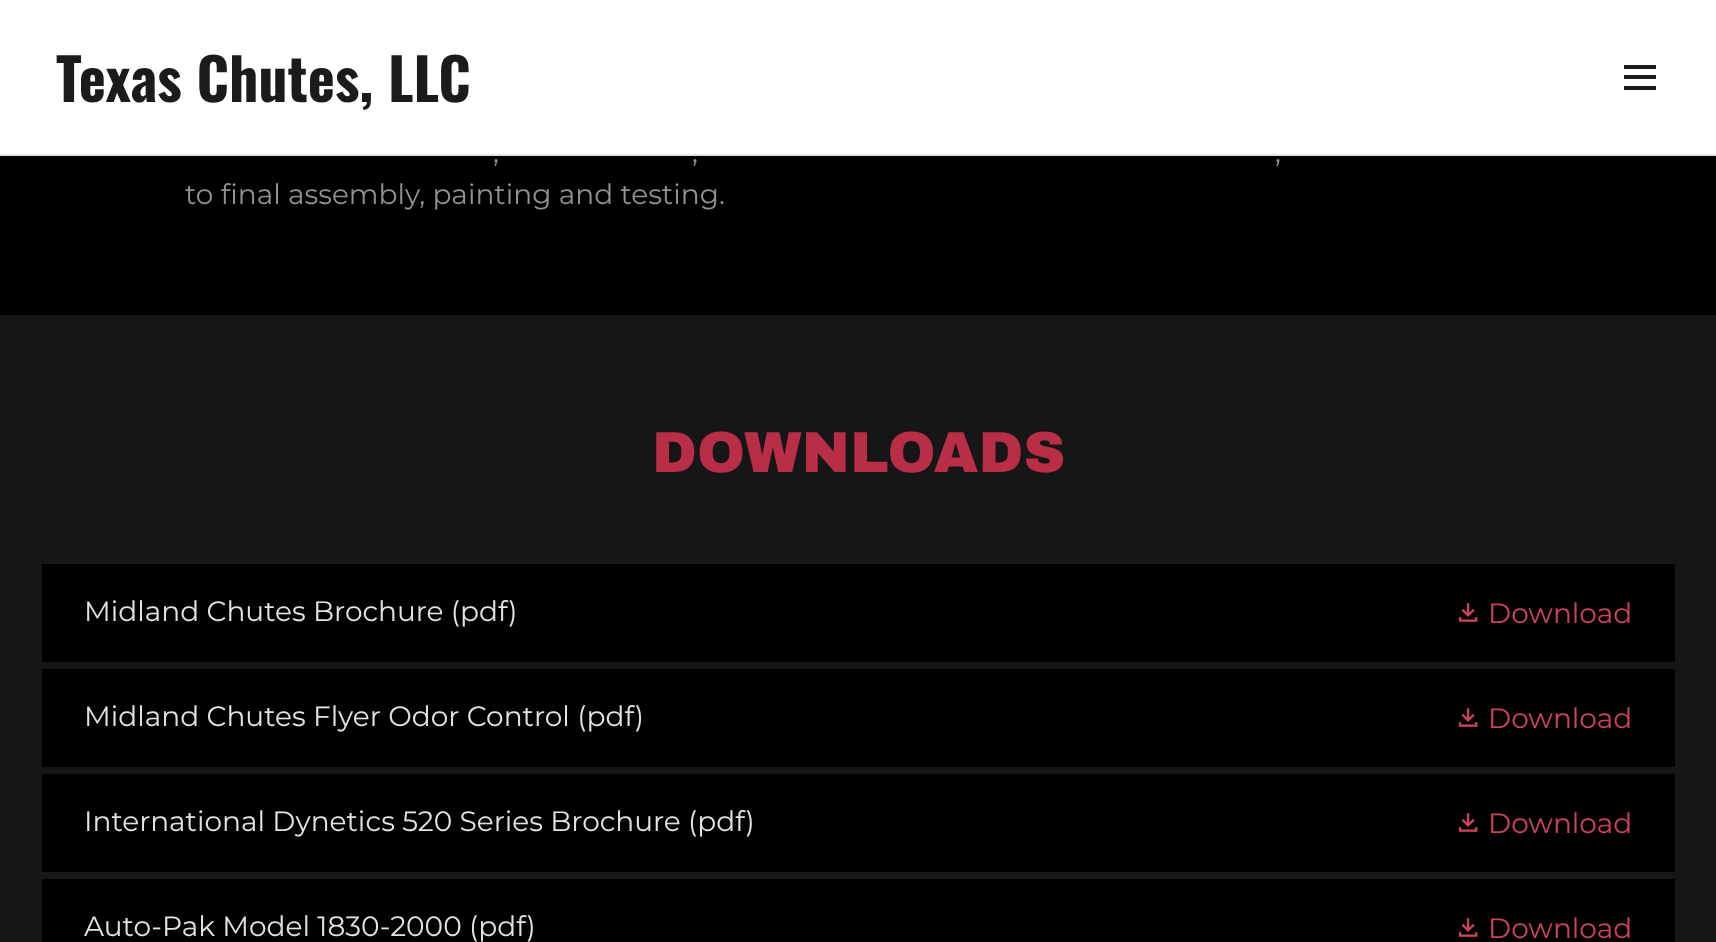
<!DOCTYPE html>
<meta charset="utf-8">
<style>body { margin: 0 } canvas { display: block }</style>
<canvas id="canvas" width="1716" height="942"></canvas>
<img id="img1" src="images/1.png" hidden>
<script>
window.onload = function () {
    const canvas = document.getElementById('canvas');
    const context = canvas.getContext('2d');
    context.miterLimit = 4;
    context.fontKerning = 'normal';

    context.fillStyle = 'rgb(22, 22, 22)';
    context.fillRect(0, 0, 1716, 942);
    context.fillStyle = 'rgb(255, 255, 255)';
    context.fillRect(0, 0, 1716, 154);
    context.fillStyle = 'rgb(27, 27, 27)';
    context.fillRect(1624, 65, 32, 4);
    context.fillRect(1624, 75, 32, 4);
    context.fillRect(1624, 86, 32, 4);
    context.fillStyle = 'rgb(226, 226, 226)';
    context.fillRect(0, 154, 1716, 2);
    context.fillStyle = 'rgb(0, 0, 0)';
    context.fillRect(0, 156, 1716, 159);
    context.fillRect(42, 564, 1633, 98);
    context.drawImage(document.getElementById('img1'), 1458, 603, 20, 19);
    context.fillRect(42, 669, 1633, 98);
    context.drawImage(document.getElementById('img1'), 1458, 708, 20, 19);
    context.fillRect(42, 774, 1633, 98);
    context.drawImage(document.getElementById('img1'), 1458, 813, 20, 19);
    context.fillRect(42, 879, 1633, 63);
    context.drawImage(document.getElementById('img1'), 1458, 918, 20, 19);
    context.font = 'bold 57.75px Oswald';
    context.fillStyle = 'rgb(27, 27, 27)';
    context.fillText('Texas Chutes, LLC', 56, 102);
    context.font = '28px Montserrat';
    context.fillStyle = 'rgb(145, 145, 145)';
    context.fillText(',', 493, 162);
    context.fillText(',', 692, 162);
    context.fillText(',', 1275, 162);
    context.fillText('to final assembly, painting and testing.', 185, 204);
    context.font = '900 57.75px Archivo Black';
    context.fillStyle = 'rgb(184, 46, 70)';
    context.fillText('DOWNLOADS', 652, 472);
    context.font = '28px Montserrat';
    context.fillStyle = 'rgb(226, 226, 226)';
    context.fillText('Midland Chutes Brochure (pdf)', 84, 621);
    context.fillStyle = 'rgb(204, 67, 91)';
    context.fillText('Download', 1488, 623);
    context.fillStyle = 'rgb(226, 226, 226)';
    context.fillText('Midland Chutes Flyer Odor Control (pdf)', 84, 726);
    context.fillStyle = 'rgb(204, 67, 91)';
    context.fillText('Download', 1488, 728);
    context.fillStyle = 'rgb(226, 226, 226)';
    context.fillText('International Dynetics 520 Series Brochure (pdf)', 84, 831);
    context.fillStyle = 'rgb(204, 67, 91)';
    context.fillText('Download', 1488, 833);
    context.fillStyle = 'rgb(226, 226, 226)';
    context.fillText('Auto-Pak Model 1830-2000 (pdf)', 84, 936);
    context.fillStyle = 'rgb(204, 67, 91)';
    context.fillText('Download', 1488, 938);
};
</script>
